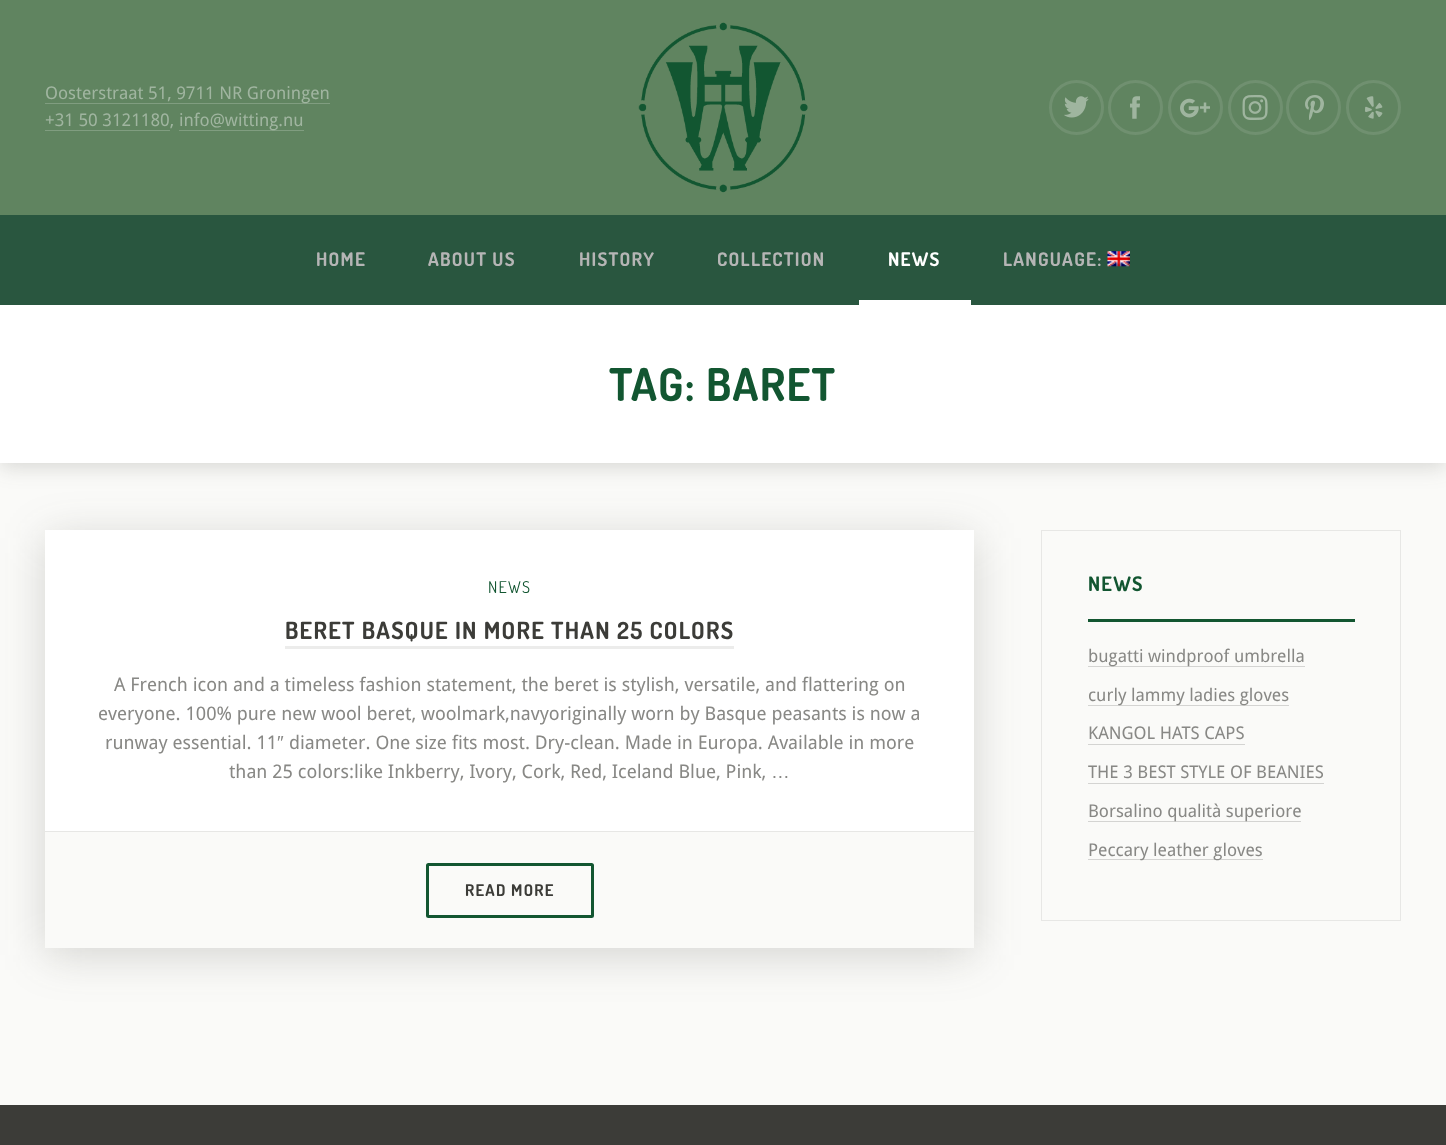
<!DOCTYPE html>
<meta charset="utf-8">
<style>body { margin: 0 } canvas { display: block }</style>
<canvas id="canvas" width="1446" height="1145"></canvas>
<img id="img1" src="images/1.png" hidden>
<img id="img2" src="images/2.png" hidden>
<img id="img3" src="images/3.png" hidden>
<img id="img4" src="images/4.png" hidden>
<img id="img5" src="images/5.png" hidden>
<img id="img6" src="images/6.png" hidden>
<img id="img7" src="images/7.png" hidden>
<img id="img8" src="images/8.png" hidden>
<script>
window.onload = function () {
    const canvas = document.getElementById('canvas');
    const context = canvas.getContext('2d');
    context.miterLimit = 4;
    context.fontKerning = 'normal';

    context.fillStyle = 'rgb(250, 250, 248)';
    context.fillRect(0, 0, 1446, 1145);
    context.fillStyle = 'rgb(96, 132, 96)';
    context.fillRect(0, 0, 1446, 215);
    context.fillStyle = 'rgb(128, 157, 128)';
    context.fillRect(45, 103, 285, 1);
    context.fillRect(45, 130, 125, 1);
    context.fillRect(179, 130, 125, 1);
    context.drawImage(document.getElementById('img1'), 638, 22, 170, 171);
    context.beginPath();
    context.arc(1076.5, 107.5, 26, 0, 2 * Math.PI);
    context.strokeStyle = 'rgb(112, 144, 112)';
    context.lineWidth = 3;
    context.stroke();
    context.drawImage(document.getElementById('img2'), 1064, 96, 25, 22);
    context.beginPath();
    context.arc(1135.5, 107.5, 26, 0, 2 * Math.PI);
    context.stroke();
    context.drawImage(document.getElementById('img3'), 1130, 96, 10, 23);
    context.beginPath();
    context.arc(1195.5, 107.5, 26, 0, 2 * Math.PI);
    context.stroke();
    context.drawImage(document.getElementById('img4'), 1180, 98, 30, 20);
    context.beginPath();
    context.arc(1255.5, 107.5, 26, 0, 2 * Math.PI);
    context.stroke();
    context.drawImage(document.getElementById('img5'), 1242, 95, 26, 25);
    context.beginPath();
    context.arc(1313.5, 107.5, 26, 0, 2 * Math.PI);
    context.stroke();
    context.drawImage(document.getElementById('img6'), 1305, 95, 19, 25);
    context.beginPath();
    context.arc(1373.5, 107.5, 26, 0, 2 * Math.PI);
    context.stroke();
    context.drawImage(document.getElementById('img7'), 1365, 96, 18, 23);
    context.fillStyle = 'rgba(60, 60, 56, 0.2)';
    context.filter = 'blur(11px)';
    context.beginPath();
    context.rect(0, 309, 1446, 157);
    context.fill();
    context.filter = 'none';
    context.fillStyle = 'rgb(41, 86, 63)';
    context.fillRect(0, 215, 1446, 90);
    context.fillStyle = 'rgb(255, 255, 255)';
    context.fillRect(859, 300, 112, 5);
    context.drawImage(document.getElementById('img8'), 1107, 251, 23, 16);
    context.fillRect(0, 305, 1446, 158);
    context.fillStyle = 'rgba(60, 60, 56, 0.2)';
    context.filter = 'blur(22.5px)';
    context.beginPath();
    context.rect(45, 538, 929, 417);
    context.fill();
    context.filter = 'none';
    context.fillStyle = 'rgb(255, 255, 255)';
    context.fillRect(45, 530, 929, 301);
    context.fillStyle = 'rgb(236, 236, 235)';
    context.fillRect(285, 646, 449, 3);
    context.fillStyle = 'rgb(250, 250, 248)';
    context.fillRect(45, 832, 929, 116);
    context.fillStyle = 'rgb(231, 231, 229)';
    context.fillRect(45, 831, 929, 1);
    context.beginPath();
    context.roundRect(427.5, 864.5, 165, 52, 1);
    context.strokeStyle = 'rgb(18, 86, 49)';
    context.stroke();
    context.strokeStyle = 'rgb(231, 231, 229)';
    context.lineWidth = 1;
    context.strokeRect(1041.5, 530.5, 359, 390);
    context.fillStyle = 'rgb(18, 86, 49)';
    context.fillRect(1088, 619, 267, 3);
    context.fillStyle = 'rgb(212, 212, 210)';
    context.fillRect(1088, 666, 217, 1);
    context.fillRect(1088, 705, 201, 1);
    context.fillRect(1088, 744, 157, 1);
    context.fillRect(1088, 783, 236, 1);
    context.fillRect(1088, 821, 213, 1);
    context.fillRect(1088, 859, 175, 1);
    context.fillStyle = 'rgb(60, 60, 56)';
    context.fillRect(0, 1105, 1446, 40);
    context.font = '17.5px Droid Sans';
    context.fillStyle = 'rgb(160, 181, 160)';
    context.fillText('Oosterstraat 51, 9711 NR Groningen', 45, 99);
    context.fillText('+31 50 3121180,', 45, 126);
    context.fillText('info@witting.nu', 179, 126);
    context.letterSpacing = '1.25px';
    context.font = 'bold 18.75px Dosis';
    context.fillStyle = 'rgb(181, 181, 181)';
    context.fillText('HOME', 316, 266);
    context.fillText('ABOUT US', 428, 266);
    context.fillText('HISTORY', 579, 266);
    context.fillText('COLLECTION', 717, 266);
    context.fillStyle = 'rgb(255, 255, 255)';
    context.fillText('NEWS', 888, 266);
    context.fillStyle = 'rgb(181, 181, 181)';
    context.fillText('LANGUAGE:', 1003, 266);
    context.font = 'bold 45px Dosis';
    context.fillStyle = 'rgb(18, 86, 49)';
    context.fillText('TAG: BARET', 609, 401);
    context.font = '16.25px Dosis';
    context.fillText('NEWS', 488, 593);
    context.font = 'bold 23.75px Dosis';
    context.fillStyle = 'rgb(60, 60, 56)';
    context.fillText('BERET BASQUE IN MORE THAN 25 COLORS', 285, 639);
    context.letterSpacing = '0px';
    context.font = '18.75px Droid Sans';
    context.fillStyle = 'rgb(136, 136, 133)';
    context.fillText('A French icon and a timeless fashion statement, the beret is stylish, versatile, and flattering on', 114, 691);
    context.fillText('everyone. 100% pure new wool beret, woolmark,navyoriginally worn by Basque peasants is now a', 98, 720);
    context.fillText('runway essential. 11', 105, 749);
    context.font = '18.75px Liberation Sans';
    context.fillText('″', 277, 749);
    context.font = '18.75px Droid Sans';
    context.fillText('diameter. One size fits most. Dry-clean. Made in Europa. Available in more', 289, 749);
    context.fillText('than 25 colors:like Inkberry, Ivory, Cork, Red, Iceland Blue, Pink,', 229, 778);
    context.font = '18.75px Liberation Sans';
    context.fillText('…', 771, 778);
    context.letterSpacing = '1.25px';
    context.font = 'bold 16.25px Dosis';
    context.fillStyle = 'rgb(60, 60, 56)';
    context.fillText('READ MORE', 465, 896);
    context.font = 'bold 20px Dosis';
    context.fillStyle = 'rgb(18, 86, 49)';
    context.fillText('NEWS', 1088, 591);
    context.letterSpacing = '0px';
    context.font = '17.5px Droid Sans';
    context.fillStyle = 'rgb(136, 136, 133)';
    context.fillText('bugatti windproof umbrella', 1088, 662);
    context.fillText('curly lammy ladies gloves', 1088, 701);
    context.fillText('KANGOL HATS CAPS', 1088, 739);
    context.fillText('THE 3 BEST STYLE OF BEANIES', 1088, 778);
    context.fillText('Borsalino qualità superiore', 1088, 817);
    context.fillText('Peccary leather gloves', 1088, 856);
};
</script>
